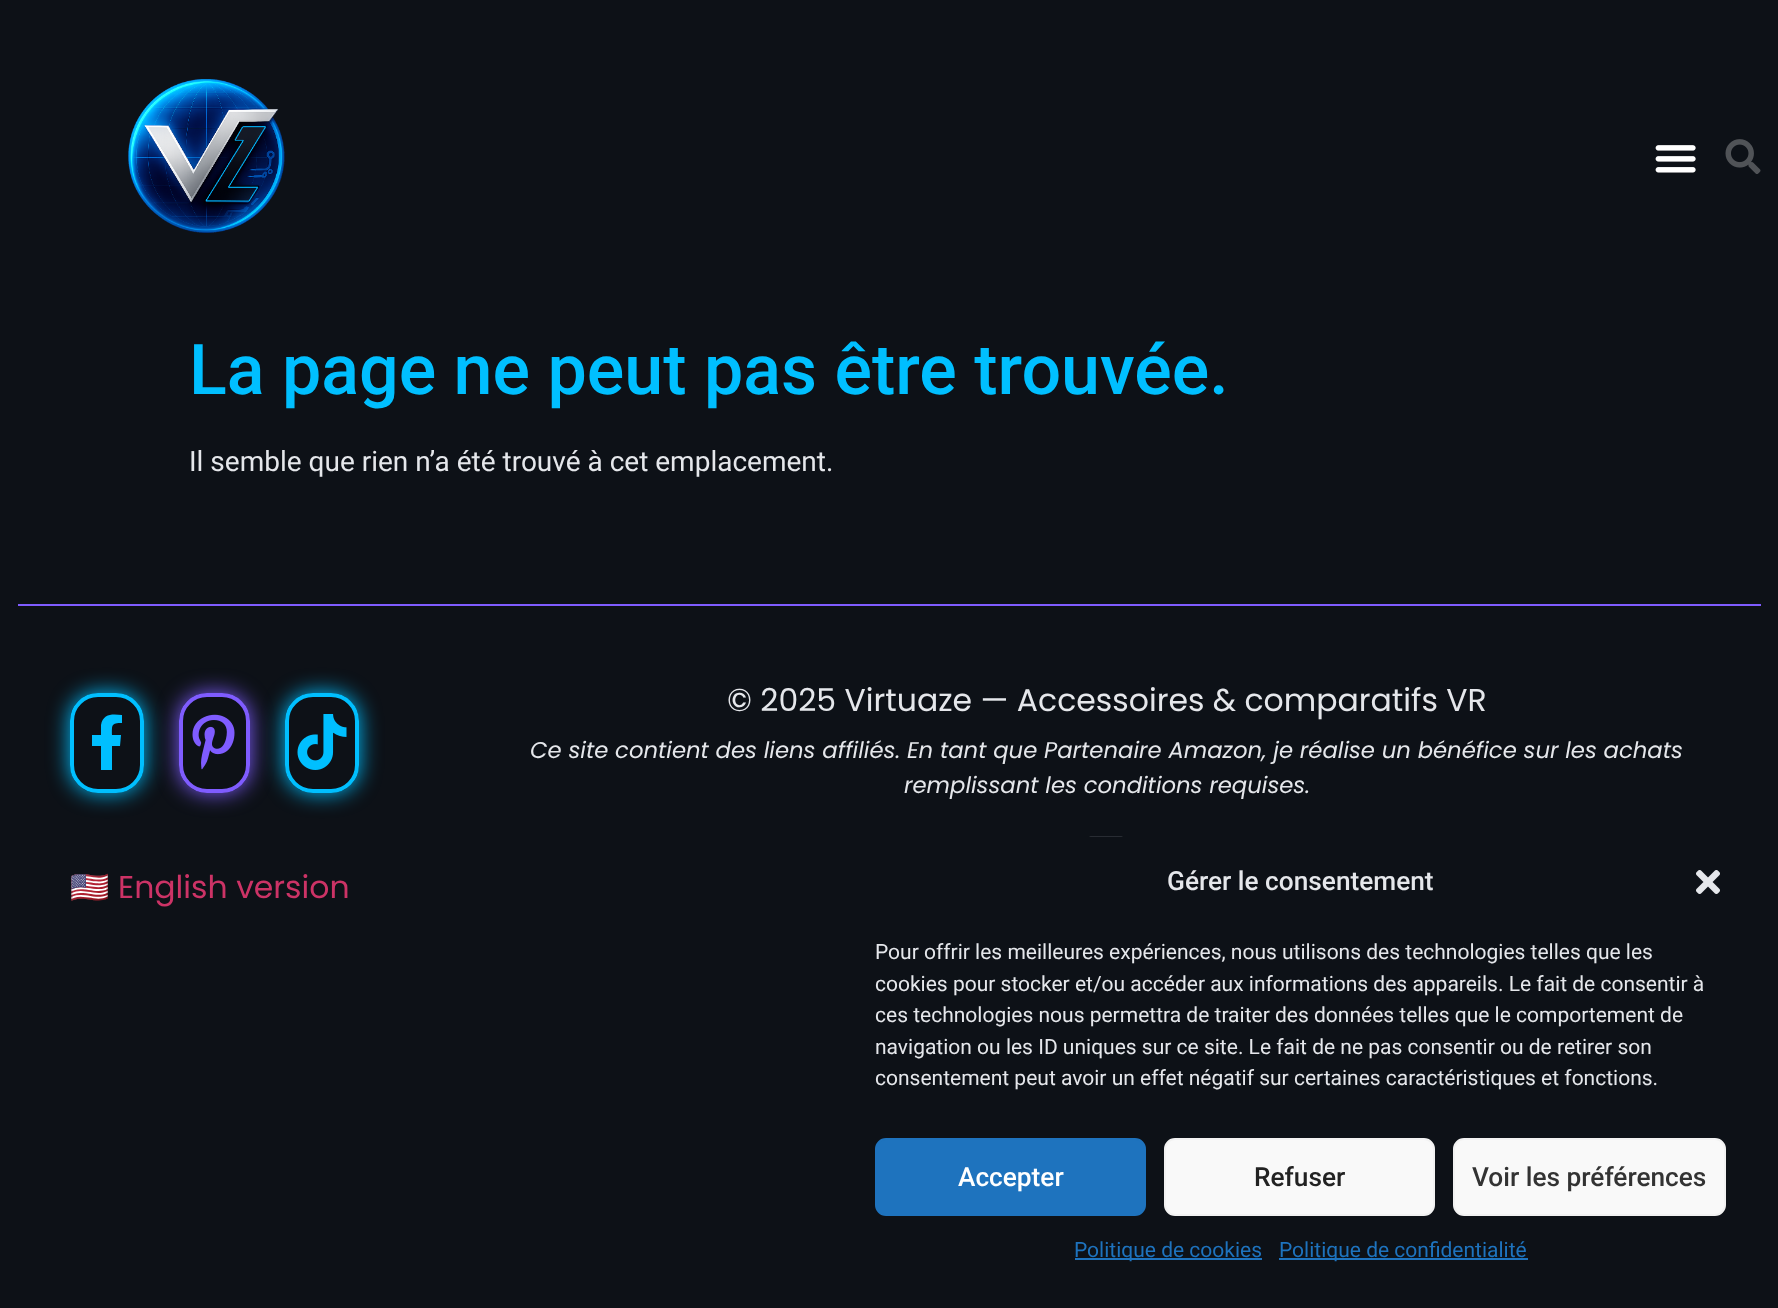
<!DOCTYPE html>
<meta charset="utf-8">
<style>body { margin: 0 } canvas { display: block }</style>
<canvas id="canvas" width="1778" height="1308"></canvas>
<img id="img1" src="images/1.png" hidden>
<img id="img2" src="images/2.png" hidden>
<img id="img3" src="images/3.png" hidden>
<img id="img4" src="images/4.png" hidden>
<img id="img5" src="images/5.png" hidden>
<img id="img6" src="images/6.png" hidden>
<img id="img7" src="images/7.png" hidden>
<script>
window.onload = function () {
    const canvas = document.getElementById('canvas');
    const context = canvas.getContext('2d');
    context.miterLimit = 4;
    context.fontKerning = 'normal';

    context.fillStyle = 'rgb(13, 17, 23)';
    context.fillRect(0, 0, 1778, 1308);
    context.drawImage(document.getElementById('img1'), 128, 79, 157, 154);
    context.drawImage(document.getElementById('img2'), 1655, 145, 41, 28);
    context.drawImage(document.getElementById('img3'), 1725, 139, 36, 35);
    context.fillStyle = 'rgb(127, 92, 255)';
    context.fillRect(18, 604, 1743, 2);
    context.drawImage(document.getElementById('img4'), 1089, 836, 34, 1);
    context.save();
    context.beginPath();
    context.moveTo(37, 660);
    context.lineTo(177, 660);
    context.lineTo(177, 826);
    context.lineTo(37, 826);
    context.closePath();
    context.moveTo(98, 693);
    context.lineTo(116, 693);
    context.bezierCurveTo(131.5, 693, 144, 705.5, 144, 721);
    context.lineTo(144, 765);
    context.bezierCurveTo(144, 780.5, 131.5, 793, 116, 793);
    context.lineTo(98, 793);
    context.bezierCurveTo(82.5, 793, 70, 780.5, 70, 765);
    context.lineTo(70, 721);
    context.bezierCurveTo(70, 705.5, 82.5, 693, 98, 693);
    context.closePath();
    context.clip('evenodd');
    context.fillStyle = 'rgb(0, 191, 255)';
    context.filter = 'blur(10.5px)';
    context.beginPath();
    context.roundRect(70, 693, 74, 100, 28);
    context.fill();
    context.filter = 'none';
    context.restore();
    context.beginPath();
    context.roundRect(72, 695, 70, 96, 26);
    context.strokeStyle = 'rgb(0, 191, 255)';
    context.lineWidth = 4;
    context.stroke();
    context.fillStyle = 'rgb(0, 191, 255)';
    context.beginPath();
    context.moveTo(120, 746);
    context.lineTo(112, 746);
    context.lineTo(112, 770);
    context.lineTo(101, 770);
    context.lineTo(101, 746);
    context.lineTo(92, 746);
    context.lineTo(92, 735);
    context.lineTo(101, 735);
    context.lineTo(101, 725);
    context.bezierCurveTo(103, 713, 113, 714, 122, 715);
    context.lineTo(122, 723);
    context.bezierCurveTo(111, 723, 112, 725, 112, 735);
    context.lineTo(121, 735);
    context.closePath();
    context.fill();
    context.save();
    context.beginPath();
    context.moveTo(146, 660);
    context.lineTo(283, 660);
    context.lineTo(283, 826);
    context.lineTo(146, 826);
    context.closePath();
    context.moveTo(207, 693);
    context.lineTo(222, 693);
    context.bezierCurveTo(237.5, 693, 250, 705.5, 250, 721);
    context.lineTo(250, 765);
    context.bezierCurveTo(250, 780.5, 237.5, 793, 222, 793);
    context.lineTo(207, 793);
    context.bezierCurveTo(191.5, 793, 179, 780.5, 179, 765);
    context.lineTo(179, 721);
    context.bezierCurveTo(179, 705.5, 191.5, 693, 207, 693);
    context.closePath();
    context.clip('evenodd');
    context.fillStyle = 'rgb(127, 92, 255)';
    context.filter = 'blur(10.5px)';
    context.beginPath();
    context.roundRect(179, 693, 71, 100, 28);
    context.fill();
    context.filter = 'none';
    context.restore();
    context.beginPath();
    context.roundRect(181, 695, 67, 96, 26);
    context.strokeStyle = 'rgb(127, 92, 255)';
    context.stroke();
    context.drawImage(document.getElementById('img5'), 192, 714, 43, 56);
    context.save();
    context.beginPath();
    context.moveTo(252, 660);
    context.lineTo(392, 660);
    context.lineTo(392, 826);
    context.lineTo(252, 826);
    context.closePath();
    context.moveTo(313, 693);
    context.lineTo(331, 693);
    context.bezierCurveTo(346.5, 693, 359, 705.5, 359, 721);
    context.lineTo(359, 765);
    context.bezierCurveTo(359, 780.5, 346.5, 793, 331, 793);
    context.lineTo(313, 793);
    context.bezierCurveTo(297.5, 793, 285, 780.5, 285, 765);
    context.lineTo(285, 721);
    context.bezierCurveTo(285, 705.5, 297.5, 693, 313, 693);
    context.closePath();
    context.clip('evenodd');
    context.filter = 'blur(10.5px)';
    context.beginPath();
    context.roundRect(285, 693, 74, 100, 28);
    context.fill();
    context.filter = 'none';
    context.restore();
    context.beginPath();
    context.roundRect(287, 695, 70, 96, 26);
    context.strokeStyle = 'rgb(0, 191, 255)';
    context.stroke();
    context.drawImage(document.getElementById('img6'), 297, 714, 50, 56);
    context.drawImage(document.getElementById('img7'), 1696, 870, 24, 24);
    context.fillStyle = 'rgb(30, 115, 190)';
    context.beginPath();
    context.roundRect(876, 1139, 269, 76, 10);
    context.fill();
    context.strokeStyle = 'rgb(30, 115, 190)';
    context.lineWidth = 2;
    context.stroke();
    context.fillStyle = 'rgb(249, 249, 249)';
    context.beginPath();
    context.roundRect(1165, 1139, 269, 76, 10);
    context.fill();
    context.strokeStyle = 'rgb(242, 242, 242)';
    context.stroke();
    context.beginPath();
    context.roundRect(1454, 1139, 271, 76, 10);
    context.fill();
    context.stroke();
    context.fillStyle = 'rgb(30, 115, 190)';
    context.fillRect(1075, 1258, 187, 2);
    context.fillRect(1279, 1258, 249, 2);
    context.font = '500 70px Roboto';
    context.fillStyle = 'rgb(0, 191, 255)';
    context.fillText('La page ne peut pas être trouvée.', 189, 394);
    context.font = '28px Roboto';
    context.fillStyle = 'rgb(229, 231, 235)';
    context.fillText('Il semble que rien n’a été trouvé à cet emplacement.', 189, 471);
    context.font = '31.5px Poppins';
    context.fillText('© 2025 Virtuaze — Accessoires & comparatifs VR', 727, 711);
    context.font = 'italic 22.75px Poppins';
    context.fillText('Ce site contient des liens affiliés. En tant que Partenaire Amazon, je réalise un bénéfice sur les achats', 530, 758);
    context.fillText('remplissant les conditions requises.', 904, 793);
    context.font = '31.5px Noto Color Emoji';
    context.fillText('🇺🇸', 70, 898);
    context.font = '31.5px Poppins';
    context.fillStyle = 'rgb(204, 51, 102)';
    context.fillText('English version', 118, 898);
    context.font = '500 26.25px Roboto';
    context.fillStyle = 'rgb(229, 231, 235)';
    context.fillText('Gérer le consentement', 1167, 890);
    context.font = '21px Roboto';
    context.fillText('Pour offrir les meilleures expériences, nous utilisons des technologies telles que les', 875, 959);
    context.fillText('cookies pour stocker et/ou accéder aux informations des appareils. Le fait de consentir à', 875, 991);
    context.fillText('ces technologies nous permettra de traiter des données telles que le comportement de', 875, 1022);
    context.fillText('navigation ou les ID uniques sur ce site. Le fait de ne pas consentir ou de retirer son', 875, 1054);
    context.fillText('consentement peut avoir un effet négatif sur certaines caractéristiques et fonctions.', 875, 1085);
    context.font = '500 26.25px Roboto';
    context.fillStyle = 'rgb(255, 255, 255)';
    context.fillText('Accepter', 958, 1186);
    context.fillStyle = 'rgb(34, 34, 34)';
    context.fillText('Refuser', 1254, 1186);
    context.fillStyle = 'rgb(51, 51, 51)';
    context.fillText('Voir les préférences', 1472, 1186);
    context.font = '21px Roboto';
    context.fillStyle = 'rgb(30, 115, 190)';
    context.fillText('Politique de cookies', 1074, 1257);
    context.fillText('Politique de confidentialité', 1279, 1257);
};
</script>
